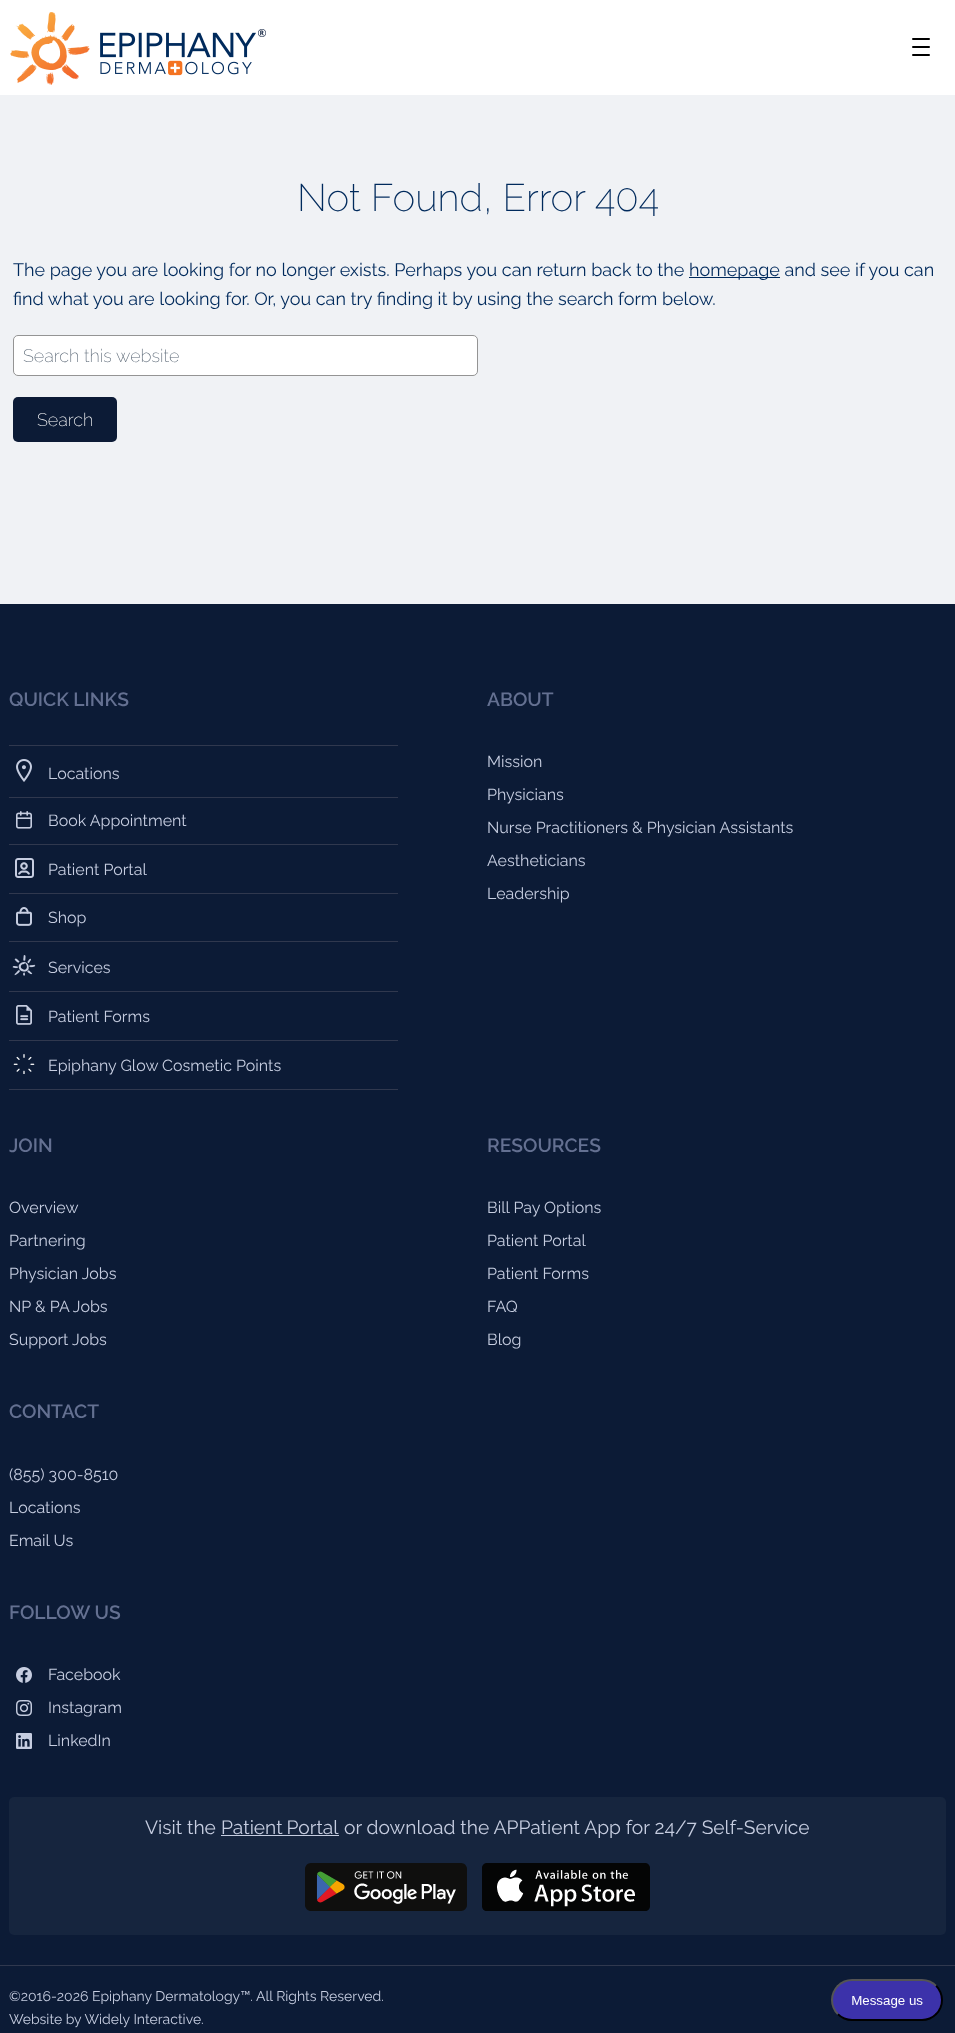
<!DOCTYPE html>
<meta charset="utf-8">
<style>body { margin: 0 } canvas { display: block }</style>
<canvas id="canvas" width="955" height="2033"></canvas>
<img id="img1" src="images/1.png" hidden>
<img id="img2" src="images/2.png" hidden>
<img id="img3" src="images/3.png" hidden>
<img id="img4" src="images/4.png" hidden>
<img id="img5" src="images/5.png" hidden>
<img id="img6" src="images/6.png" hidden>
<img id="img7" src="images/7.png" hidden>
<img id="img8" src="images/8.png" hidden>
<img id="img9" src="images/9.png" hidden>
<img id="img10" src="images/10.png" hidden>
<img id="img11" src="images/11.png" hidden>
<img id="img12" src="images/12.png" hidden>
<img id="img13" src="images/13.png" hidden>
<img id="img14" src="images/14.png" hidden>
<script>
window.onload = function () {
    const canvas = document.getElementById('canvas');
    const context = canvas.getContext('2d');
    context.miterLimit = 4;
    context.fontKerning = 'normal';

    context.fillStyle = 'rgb(240, 242, 245)';
    context.fillRect(0, 0, 955, 2033);
    context.fillStyle = 'rgb(255, 255, 255)';
    context.fillRect(0, 0, 955, 95);
    context.drawImage(document.getElementById('img1'), 10, 12, 256, 73);
    context.fillStyle = 'rgb(0, 0, 0)';
    context.beginPath();
    context.roundRect(912, 38, 18, 2, 1);
    context.fill();
    context.beginPath();
    context.roundRect(912, 46, 18, 2, 1);
    context.fill();
    context.beginPath();
    context.roundRect(912, 54, 18, 2, 1);
    context.fill();
    context.fillStyle = 'rgb(0, 42, 92)';
    context.fillRect(689, 277, 91, 1);
    context.fillStyle = 'rgb(255, 255, 255)';
    context.beginPath();
    context.roundRect(13.5, 335.5, 464, 40, 4.5);
    context.fill();
    context.strokeStyle = 'rgb(148, 148, 148)';
    context.stroke();
    context.fillStyle = 'rgb(12, 27, 54)';
    context.beginPath();
    context.roundRect(13, 397, 104, 45, 5);
    context.fill();
    context.fillRect(0, 604, 955, 1429);
    context.fillStyle = 'rgb(48, 56, 78)';
    context.fillRect(9, 745, 389, 1);
    context.fillRect(9, 797, 389, 1);
    context.drawImage(document.getElementById('img2'), 16, 759, 16, 23);
    context.fillRect(9, 844, 389, 1);
    context.drawImage(document.getElementById('img3'), 16, 811, 16, 18);
    context.fillRect(9, 893, 389, 1);
    context.drawImage(document.getElementById('img4'), 15, 858, 19, 20);
    context.fillRect(9, 941, 389, 1);
    context.drawImage(document.getElementById('img5'), 16, 907, 16, 19);
    context.fillRect(9, 991, 389, 1);
    context.drawImage(document.getElementById('img6'), 12, 955, 24, 21);
    context.fillRect(9, 1040, 389, 1);
    context.drawImage(document.getElementById('img7'), 16, 1005, 16, 20);
    context.fillRect(9, 1089, 389, 1);
    context.drawImage(document.getElementById('img8'), 13, 1054, 22, 20);
    context.drawImage(document.getElementById('img9'), 16, 1667, 16, 16);
    context.drawImage(document.getElementById('img10'), 16, 1700, 16, 16);
    context.drawImage(document.getElementById('img11'), 16, 1733, 16, 16);
    context.fillStyle = 'rgb(22, 37, 62)';
    context.beginPath();
    context.roundRect(9, 1797, 937, 138, 5);
    context.fill();
    context.fillStyle = 'rgb(198, 205, 224)';
    context.fillRect(221, 1835, 118, 1);
    context.drawImage(document.getElementById('img12'), 305, 1863, 162, 48);
    context.drawImage(document.getElementById('img13'), 482, 1863, 168, 48);
    context.fillStyle = 'rgb(48, 56, 78)';
    context.fillRect(0, 1965, 955, 1);
    context.drawImage(document.getElementById('img14'), 831, 1979, 112, 42);
    context.font = '200 38.5px Raleway';
    context.fillStyle = 'rgb(0, 42, 92)';
    context.fillText('Not Found, Error 404', 297, 211);
    context.font = '18px Raleway';
    context.fillText('The page you are looking for no longer exists. Perhaps you can return back to the', 13, 276);
    context.fillText('homepage and see if you can', 689, 276);
    context.fillText('find what you are looking for. Or, you can try finding it by using the search form below.', 13, 305);
    context.font = '200 18px Raleway';
    context.fillStyle = 'rgb(92, 105, 119)';
    context.fillText('Search this website', 23, 362);
    context.fillStyle = 'rgb(255, 255, 255)';
    context.fillText('Search', 37, 426);
    context.font = '600 19.2px Raleway';
    context.fillStyle = 'rgb(100, 112, 145)';
    context.fillText('QUICK LINKS', 9, 706);
    context.font = '16px Raleway';
    context.fillStyle = 'rgb(198, 205, 224)';
    context.fillText('Locations', 48, 779);
    context.fillText('Book Appointment', 48, 826);
    context.fillText('Patient Portal', 48, 875);
    context.fillText('Shop', 48, 923);
    context.fillText('Services', 48, 973);
    context.fillText('Patient Forms', 48, 1022);
    context.fillText('Epiphany Glow Cosmetic Points', 48, 1071);
    context.font = '600 19.2px Raleway';
    context.fillStyle = 'rgb(100, 112, 145)';
    context.fillText('ABOUT', 487, 706);
    context.font = '16px Raleway';
    context.fillStyle = 'rgb(198, 205, 224)';
    context.fillText('Mission', 487, 767);
    context.fillText('Physicians', 487, 800);
    context.fillText('Nurse Practitioners & Physician Assistants', 487, 833);
    context.fillText('Aestheticians', 487, 866);
    context.fillText('Leadership', 487, 899);
    context.font = '600 19.2px Raleway';
    context.fillStyle = 'rgb(100, 112, 145)';
    context.fillText('JOIN', 9, 1152);
    context.font = '16px Raleway';
    context.fillStyle = 'rgb(198, 205, 224)';
    context.fillText('Overview', 9, 1213);
    context.fillText('Partnering', 9, 1246);
    context.fillText('Physician Jobs', 9, 1279);
    context.fillText('NP & PA Jobs', 9, 1312);
    context.fillText('Support Jobs', 9, 1345);
    context.font = '600 19.2px Raleway';
    context.fillStyle = 'rgb(100, 112, 145)';
    context.fillText('RESOURCES', 487, 1152);
    context.font = '16px Raleway';
    context.fillStyle = 'rgb(198, 205, 224)';
    context.fillText('Bill Pay Options', 487, 1213);
    context.fillText('Patient Portal', 487, 1246);
    context.fillText('Patient Forms', 487, 1279);
    context.fillText('FAQ', 487, 1312);
    context.fillText('Blog', 487, 1345);
    context.font = '600 19.2px Raleway';
    context.fillStyle = 'rgb(100, 112, 145)';
    context.fillText('CONTACT', 9, 1418);
    context.font = '16px Raleway';
    context.fillStyle = 'rgb(198, 205, 224)';
    context.fillText('(855) 300-8510', 9, 1480);
    context.fillText('Locations', 9, 1513);
    context.fillText('Email Us', 9, 1546);
    context.font = '600 19.2px Raleway';
    context.fillStyle = 'rgb(100, 112, 145)';
    context.fillText('FOLLOW US', 9, 1619);
    context.font = '16px Raleway';
    context.fillStyle = 'rgb(198, 205, 224)';
    context.fillText('Facebook', 48, 1680);
    context.fillText('Instagram', 48, 1713);
    context.fillText('LinkedIn', 48, 1746);
    context.font = '19.2px Raleway';
    context.fillText('Visit the', 145, 1834);
    context.wordSpacing = '-1px';
    context.fillText('Patient Portal', 221, 1834);
    context.wordSpacing = '0px';
    context.fillText('or download the APPatient App for 24/7 Self-Service', 344, 1834);
    context.font = '14px Raleway';
    context.fillText('©2016-2026 Epiphany Dermatology™.', 9, 2001);
    context.fillText('All Rights Reserved.', 256, 2001);
    context.fillText('Website by Widely Interactive.', 9, 2024);
};
</script>
